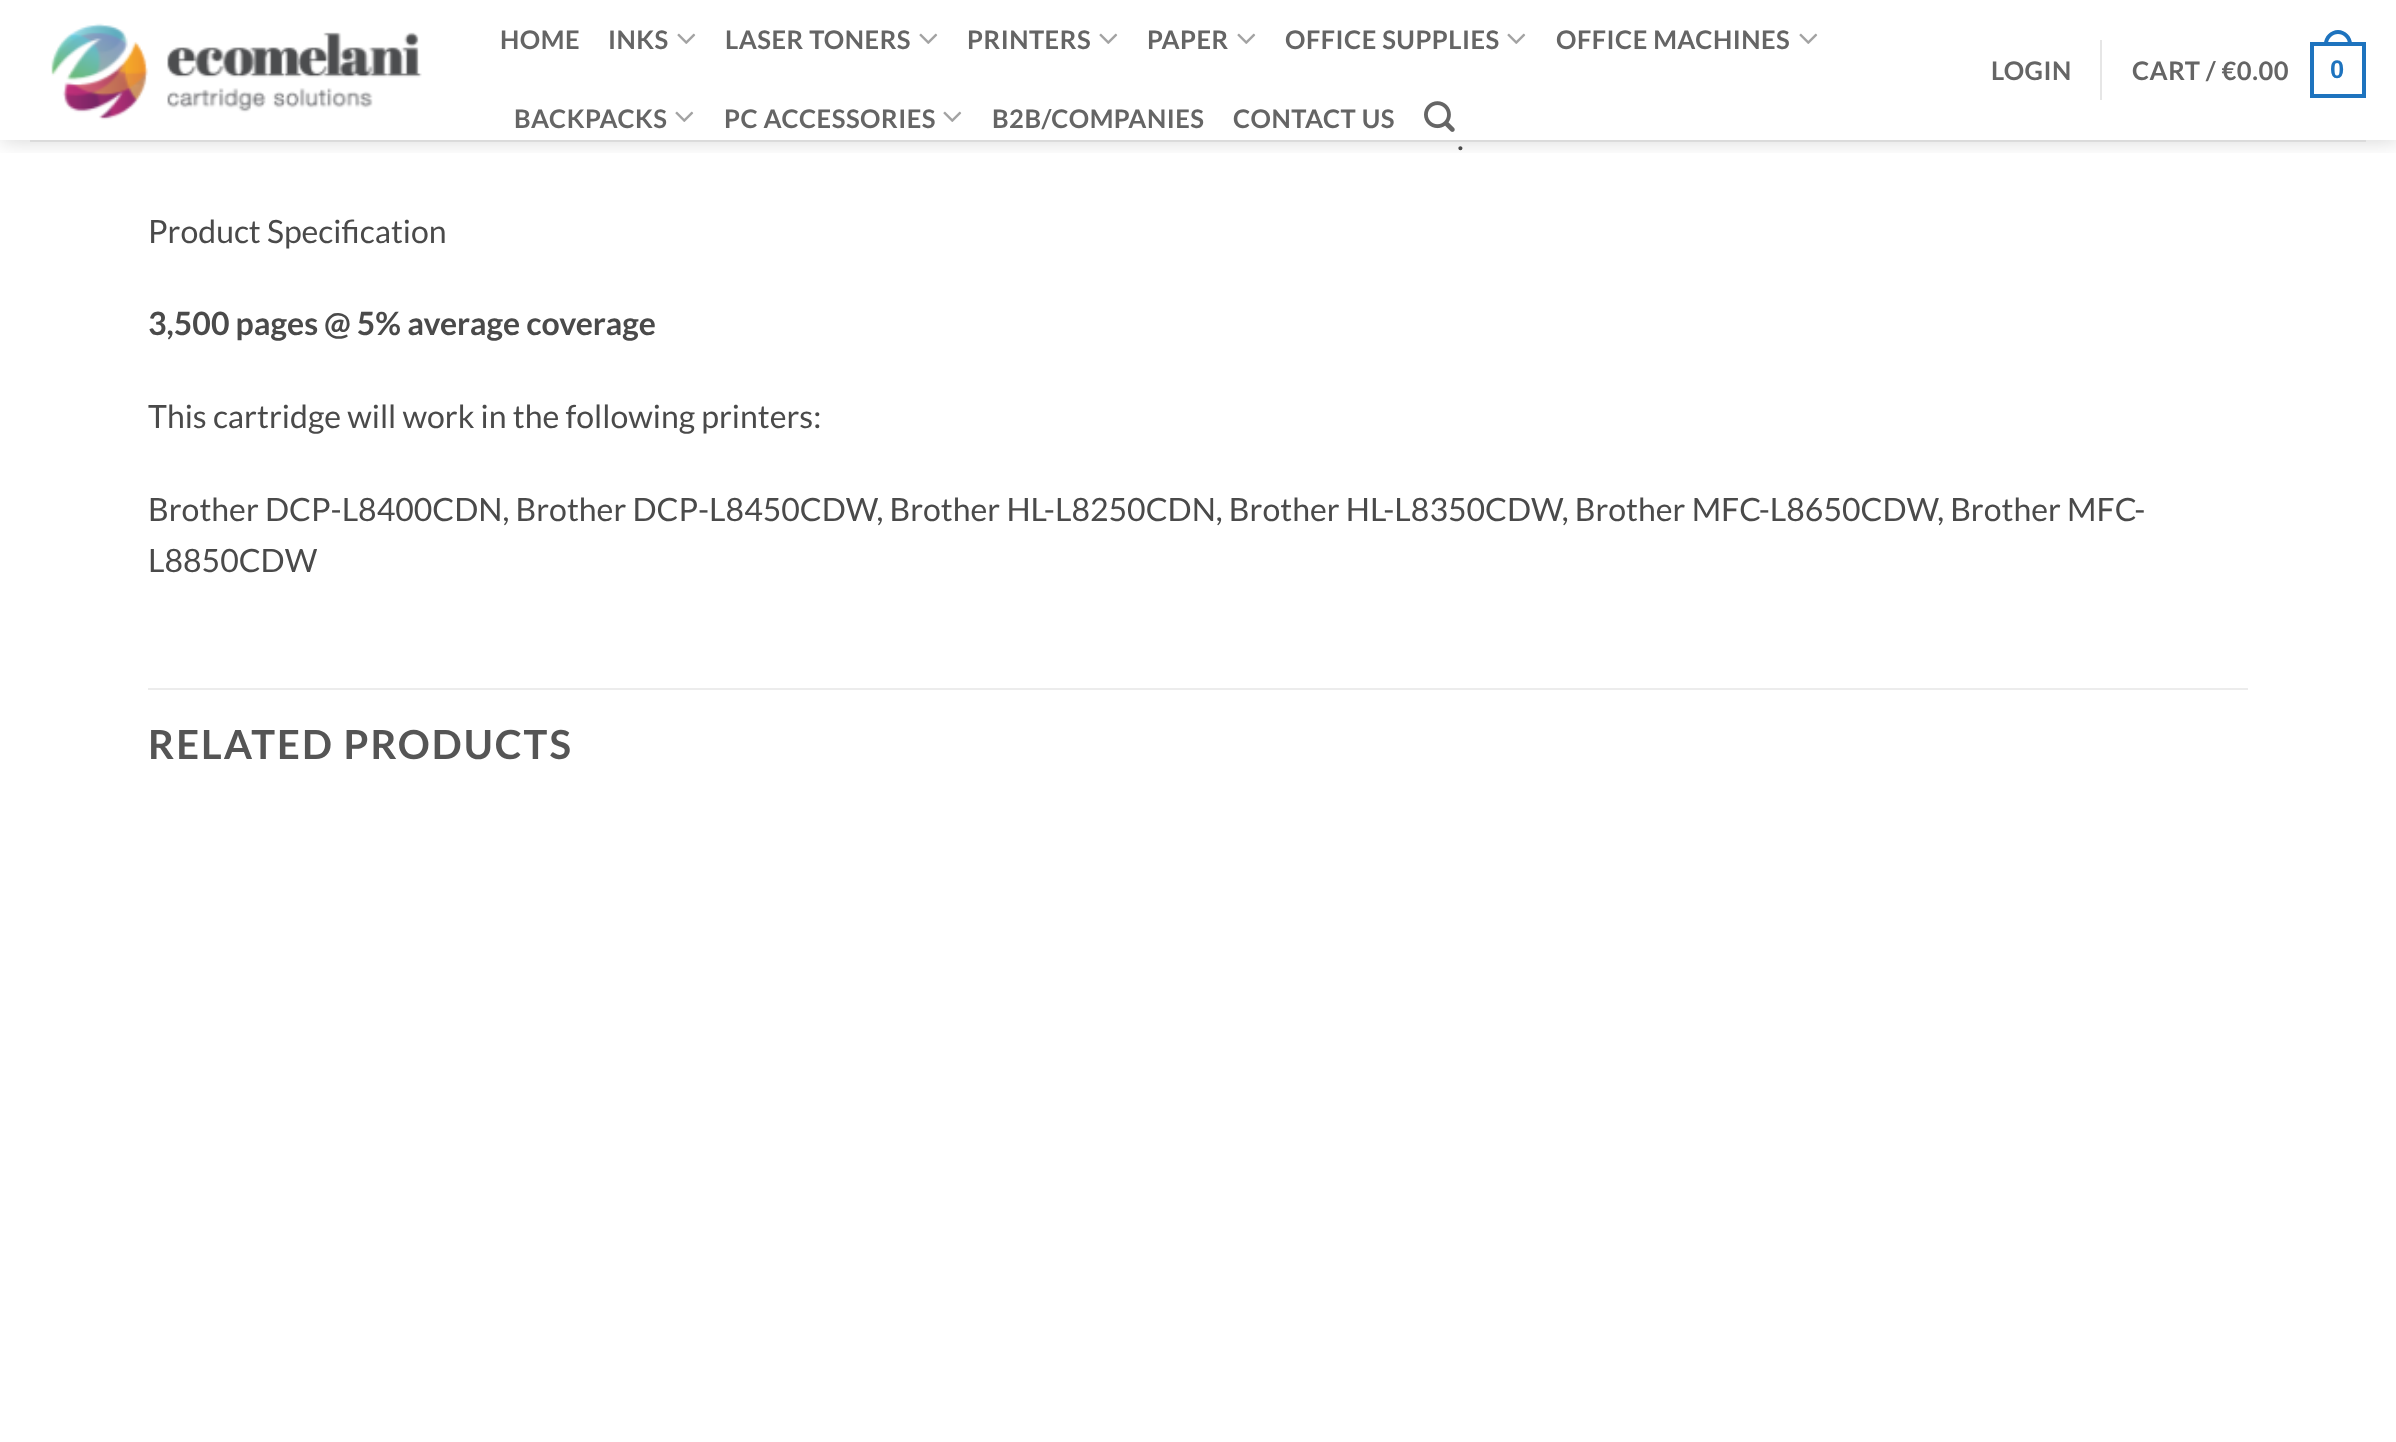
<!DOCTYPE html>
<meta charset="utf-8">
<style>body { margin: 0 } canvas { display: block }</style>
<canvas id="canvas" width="2396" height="1442"></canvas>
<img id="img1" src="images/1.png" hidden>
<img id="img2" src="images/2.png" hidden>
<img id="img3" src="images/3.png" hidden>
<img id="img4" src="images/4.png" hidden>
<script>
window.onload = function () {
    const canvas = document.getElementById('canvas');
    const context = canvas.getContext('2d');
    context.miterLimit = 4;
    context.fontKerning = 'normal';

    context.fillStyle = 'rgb(255, 255, 255)';
    context.fillRect(0, 0, 2396, 1442);
    context.save();
    context.beginPath();
    context.rect(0, 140, 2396, 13);
    context.clip();
    context.fillStyle = 'rgba(0, 0, 0, 0.15)';
    context.filter = 'blur(10px)';
    context.beginPath();
    context.rect(2, 2, 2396, 140);
    context.fill();
    context.filter = 'none';
    context.restore();
    context.drawImage(document.getElementById('img1'), 51, 23, 371, 97);
    context.drawImage(document.getElementById('img2'), 677, 33, 19, 11);
    context.drawImage(document.getElementById('img3'), 919, 33, 19, 11);
    context.drawImage(document.getElementById('img3'), 1099, 33, 19, 11);
    context.drawImage(document.getElementById('img3'), 1237, 33, 19, 11);
    context.drawImage(document.getElementById('img3'), 1507, 33, 19, 11);
    context.drawImage(document.getElementById('img3'), 1799, 33, 19, 11);
    context.drawImage(document.getElementById('img3'), 675, 111, 19, 11);
    context.drawImage(document.getElementById('img3'), 943, 111, 19, 11);
    context.drawImage(document.getElementById('img4'), 1424, 101, 31, 31);
    context.fillStyle = 'rgb(230, 230, 230)';
    context.fillRect(2100, 40, 2, 60);
    context.strokeStyle = 'rgb(30, 115, 190)';
    context.lineWidth = 4;
    context.strokeRect(2312, 44, 52, 52);
    context.fillStyle = 'rgb(30, 115, 190)';
    context.beginPath();
    context.moveTo(2338, 30);
    context.bezierCurveTo(2345.5, 30, 2352, 36.5, 2352, 44);
    context.lineTo(2352, 46);
    context.lineTo(2324, 46);
    context.lineTo(2324, 44);
    context.bezierCurveTo(2324, 36.5, 2330.5, 30, 2338, 30);
    context.closePath();
    context.moveTo(2338, 34);
    context.bezierCurveTo(2343.5, 34, 2348, 38.5, 2348, 44);
    context.lineTo(2348, 46);
    context.lineTo(2328, 46);
    context.lineTo(2328, 44);
    context.bezierCurveTo(2328, 38.5, 2332.5, 34, 2338, 34);
    context.closePath();
    context.fill('evenodd');
    context.fillStyle = 'rgba(74, 74, 74, 0.1)';
    context.fillRect(30, 140, 2336, 2);
    context.fillStyle = 'rgb(236, 236, 236)';
    context.fillRect(148, 688, 2100, 2);
    context.letterSpacing = '0.5px';
    context.font = 'bold 25.5px Lato';
    context.fillStyle = 'rgb(101, 101, 101)';
    context.fillText('HOME', 500, 49);
    context.fillText('INKS', 608, 49);
    context.fillText('LASER TONERS', 725, 49);
    context.fillText('PRINTERS', 967, 49);
    context.fillText('PAPER', 1147, 49);
    context.fillText('OFFICE SUPPLIES', 1285, 49);
    context.fillText('OFFICE MACHINES', 1556, 49);
    context.fillText('BACKPACKS', 514, 128);
    context.fillText('PC ACCESSORIES', 724, 128);
    context.fillText('B2B/COMPANIES', 992, 128);
    context.fillText('CONTACT US', 1233, 128);
    context.fillText('LOGIN', 1991, 80);
    context.fillText('CART / €0.00', 2132, 80);
    context.font = 'bold 25.5px Liberation Sans';
    context.fillStyle = 'rgb(30, 115, 190)';
    context.fillText('0', 2330, 78);
    context.letterSpacing = '0px';
    context.font = '32px Lato';
    context.fillStyle = 'rgb(74, 74, 74)';
    context.fillText('.', 1457, 150);
    context.fillText('Product Specification', 148, 243);
    context.font = 'bold 32px Lato';
    context.fillText('3,500 pages @ 5% average coverage', 148, 335);
    context.font = '32px Lato';
    context.fillText('This cartridge will work in the following printers:', 148, 428);
    context.fillText('Brother DCP-L8400CDN, Brother DCP-L8450CDW, Brother HL-L8250CDN, Brother HL-L8350CDW, Brother MFC-L8650CDW, Brother MFC-', 148, 521);
    context.fillText('L8850CDW', 148, 572);
    context.letterSpacing = '2px';
    context.font = 'bold 40px Lato';
    context.fillStyle = 'rgb(85, 85, 85)';
    context.fillText('RELATED PRODUCTS', 148, 759);
};
</script>
